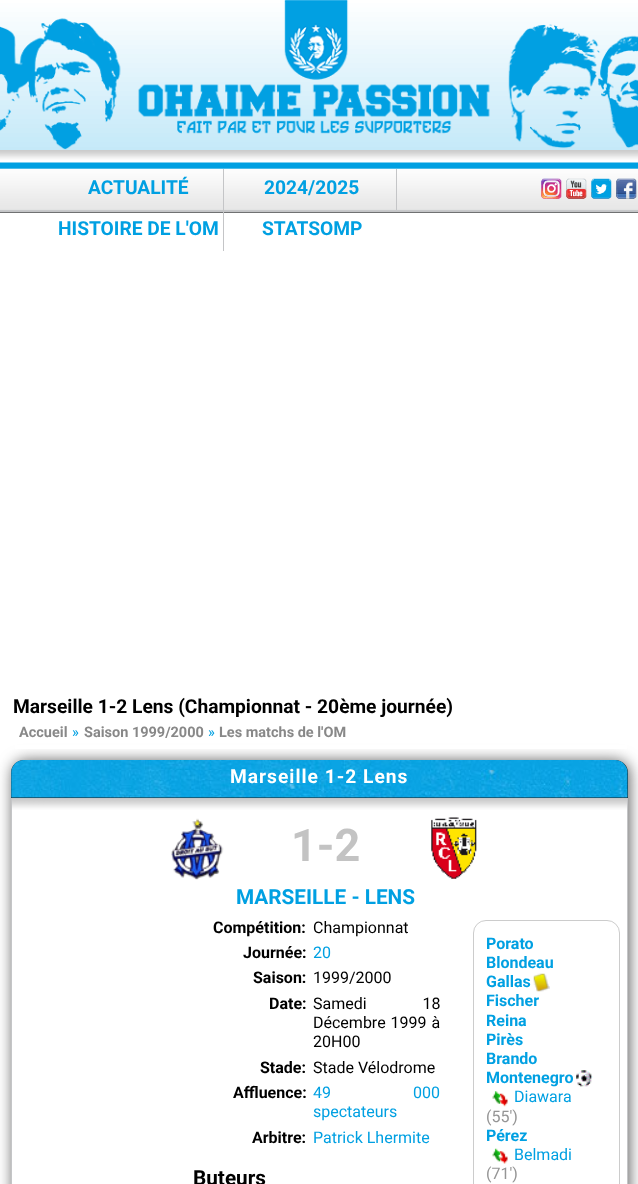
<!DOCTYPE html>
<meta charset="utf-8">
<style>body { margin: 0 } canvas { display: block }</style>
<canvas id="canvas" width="638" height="1184"></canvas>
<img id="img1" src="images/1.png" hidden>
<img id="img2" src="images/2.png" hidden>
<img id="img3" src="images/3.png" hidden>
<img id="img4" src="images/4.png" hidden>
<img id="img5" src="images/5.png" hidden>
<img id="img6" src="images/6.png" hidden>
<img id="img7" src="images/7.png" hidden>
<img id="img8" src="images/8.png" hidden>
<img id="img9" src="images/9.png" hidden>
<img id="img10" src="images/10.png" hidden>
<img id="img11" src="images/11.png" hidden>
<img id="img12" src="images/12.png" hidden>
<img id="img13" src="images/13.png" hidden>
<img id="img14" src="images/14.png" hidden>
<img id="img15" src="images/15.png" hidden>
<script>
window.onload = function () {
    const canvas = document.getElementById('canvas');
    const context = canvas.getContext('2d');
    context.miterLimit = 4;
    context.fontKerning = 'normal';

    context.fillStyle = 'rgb(255, 255, 255)';
    context.fillRect(0, 0, 638, 1184);
    context.drawImage(document.getElementById('img1'), 0, 0, 638, 150);
    context.drawImage(document.getElementById('img2'), 0, 0, 638, 150);
    context.fillStyle = 'rgb(28, 28, 28)';
    context.fillRect(0, 212, 638, 1);
    context.drawImage(document.getElementById('img3'), 0, 150, 638, 63);
    context.fillStyle = 'rgb(196, 197, 199)';
    context.fillRect(223, 169, 1, 82);
    context.fillRect(396, 169, 1, 41);
    context.drawImage(document.getElementById('img4'), 541, 178, 21, 21);
    context.drawImage(document.getElementById('img5'), 566, 178, 21, 21);
    context.drawImage(document.getElementById('img6'), 591, 178, 21, 21);
    context.drawImage(document.getElementById('img7'), 616, 178, 21, 21);
    context.fillStyle = 'rgb(85, 85, 85)';
    context.filter = 'blur(7.5px)';
    context.beginPath();
    context.roundRect(13, 761, 616, 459, 13);
    context.fill();
    context.filter = 'none';
    context.fillStyle = 'rgb(255, 255, 255)';
    context.fillRect(15, 745, 612, 4);
    context.fillStyle = 'rgb(28, 28, 28)';
    context.beginPath();
    context.roundRect(11, 760, 617, 38, [13, 13, 0, 0]);
    context.fill();
    context.drawImage(document.getElementById('img8'), 11, 760, 617, 38);
    context.fillStyle = 'rgb(255, 255, 255)';
    context.fillRect(12, 799, 615, 385);
    context.drawImage(document.getElementById('img9'), 12, 799, 615, 11);
    context.strokeStyle = 'rgb(196, 197, 199)';
    context.strokeRect(11.5, 798.5, 616, 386);
    context.drawImage(document.getElementById('img10'), 171, 818, 53, 62);
    context.drawImage(document.getElementById('img11'), 431, 817, 46, 62);
    context.beginPath();
    context.roundRect(473.5, 920.5, 146, 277, 12.5);
    context.strokeStyle = 'rgb(204, 204, 204)';
    context.stroke();
    context.drawImage(document.getElementById('img12'), 533, 973, 17, 19);
    context.drawImage(document.getElementById('img13'), 576, 1070, 17, 17);
    context.drawImage(document.getElementById('img14'), 492, 1091, 16, 16);
    context.drawImage(document.getElementById('img15'), 492, 1148, 16, 16);
    context.font = 'bold 19.2px Roboto';
    context.fillStyle = 'rgb(0, 160, 226)';
    context.fillText('ACTUALITÉ', 88, 194);
    context.fillText('2024/2025', 264, 194);
    context.fillText('HISTOIRE DE L\'OM', 58, 235);
    context.fillText('STATSOMP', 262, 235);
    context.fillStyle = 'rgb(0, 0, 0)';
    context.fillText('Marseille 1-2 Lens (Championnat - 20ème journée)', 13, 713);
    context.font = 'bold 14.5px Roboto';
    context.fillStyle = 'rgb(136, 136, 136)';
    context.fillText('Accueil', 19, 737);
    context.font = '14.5px Roboto';
    context.fillStyle = 'rgb(0, 160, 226)';
    context.fillText('»', 72, 737);
    context.font = 'bold 14.5px Roboto';
    context.fillStyle = 'rgb(136, 136, 136)';
    context.fillText('Saison 1999/2000', 84, 737);
    context.font = '14.5px Roboto';
    context.fillStyle = 'rgb(0, 160, 226)';
    context.fillText('»', 208, 737);
    context.font = 'bold 14.5px Roboto';
    context.fillStyle = 'rgb(136, 136, 136)';
    context.fillText('Les matchs de l\'OM', 219, 737);
    context.letterSpacing = '1px';
    context.font = 'bold 19.2px Roboto';
    context.fillStyle = 'rgb(255, 255, 255)';
    context.fillText('Marseille 1-2 Lens', 230, 783);
    context.letterSpacing = '0px';
    context.font = 'bold 45px Roboto';
    context.fillStyle = 'rgb(195, 195, 195)';
    context.fillText('1-2', 291, 861);
    context.font = 'bold 20.75px Roboto';
    context.fillStyle = 'rgb(0, 160, 226)';
    context.fillText('MARSEILLE - LENS', 236, 904);
    context.font = 'bold 16px Roboto';
    context.fillStyle = 'rgb(0, 0, 0)';
    context.fillText('Compétition:', 213, 933);
    context.font = '16px Roboto';
    context.fillText('Championnat', 313, 933);
    context.font = 'bold 16px Roboto';
    context.fillText('Journée:', 243, 958);
    context.font = '16px Roboto';
    context.fillStyle = 'rgb(0, 160, 226)';
    context.fillText('20', 313, 958);
    context.font = 'bold 16px Roboto';
    context.fillStyle = 'rgb(0, 0, 0)';
    context.fillText('Saison:', 253, 983);
    context.font = '16px Roboto';
    context.fillText('1999/2000', 313, 983);
    context.font = 'bold 16px Roboto';
    context.fillText('Date:', 269, 1009);
    context.wordSpacing = '52px';
    context.font = '16px Roboto';
    context.fillText('Samedi 18', 313, 1009);
    context.wordSpacing = '1px';
    context.fillText('Décembre 1999 à', 313, 1028);
    context.wordSpacing = '0px';
    context.fillText('20H00', 313, 1047);
    context.font = 'bold 16px Roboto';
    context.fillText('Stade:', 260, 1073);
    context.font = '16px Roboto';
    context.fillText('Stade Vélodrome', 313, 1073);
    context.font = 'bold 16px Roboto';
    context.fillText('Affluence:', 233, 1098);
    context.wordSpacing = '78px';
    context.font = '16px Roboto';
    context.fillStyle = 'rgb(0, 160, 226)';
    context.fillText('49 000', 313, 1098);
    context.wordSpacing = '0px';
    context.fillText('spectateurs', 313, 1117);
    context.font = 'bold 16px Roboto';
    context.fillStyle = 'rgb(0, 0, 0)';
    context.fillText('Arbitre:', 252, 1143);
    context.font = '16px Roboto';
    context.fillStyle = 'rgb(0, 160, 226)';
    context.fillText('Patrick Lhermite', 313, 1143);
    context.font = 'bold 20.75px Roboto';
    context.fillStyle = 'rgb(0, 0, 0)';
    context.fillText('Buteurs', 193, 1185);
    context.font = 'bold 16px Roboto';
    context.fillStyle = 'rgb(0, 160, 226)';
    context.fillText('Porato', 486, 949);
    context.fillText('Blondeau', 486, 968);
    context.fillText('Gallas', 486, 987);
    context.fillText('Fischer', 486, 1006);
    context.fillText('Reina', 486, 1026);
    context.fillText('Pirès', 486, 1045);
    context.fillText('Brando', 486, 1064);
    context.fillText('Montenegro', 486, 1083);
    context.font = '16px Roboto';
    context.fillText('Diawara', 514, 1102);
    context.fillStyle = 'rgb(149, 149, 149)';
    context.fillText('(55\')', 486, 1122);
    context.font = 'bold 16px Roboto';
    context.fillStyle = 'rgb(0, 160, 226)';
    context.fillText('Pérez', 486, 1141);
    context.font = '16px Roboto';
    context.fillText('Belmadi', 514, 1160);
    context.fillStyle = 'rgb(149, 149, 149)';
    context.fillText('(71\')', 486, 1179);
};
</script>
